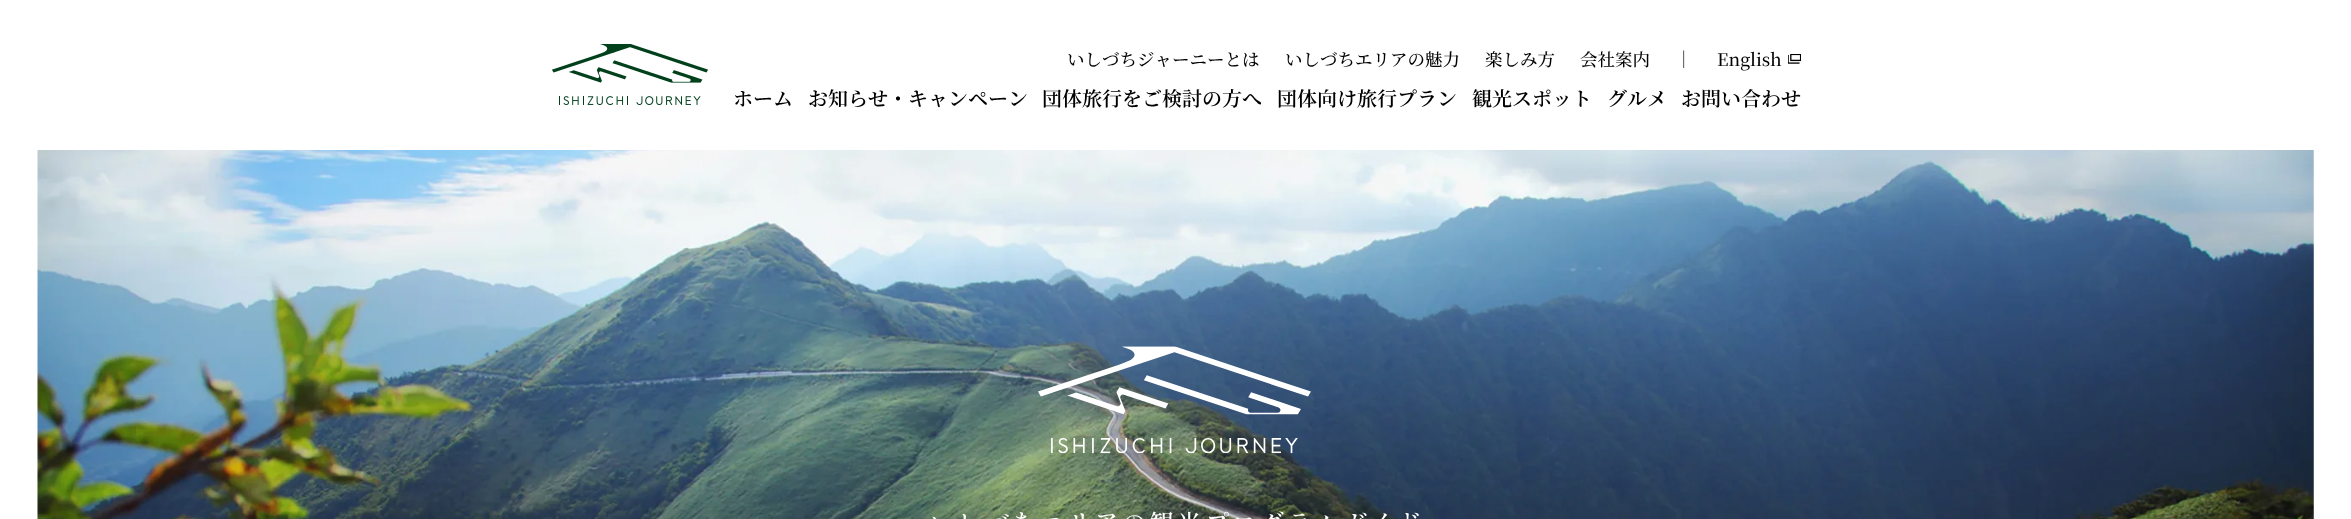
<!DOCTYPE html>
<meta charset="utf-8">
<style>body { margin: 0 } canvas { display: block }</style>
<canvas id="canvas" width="2351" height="519"></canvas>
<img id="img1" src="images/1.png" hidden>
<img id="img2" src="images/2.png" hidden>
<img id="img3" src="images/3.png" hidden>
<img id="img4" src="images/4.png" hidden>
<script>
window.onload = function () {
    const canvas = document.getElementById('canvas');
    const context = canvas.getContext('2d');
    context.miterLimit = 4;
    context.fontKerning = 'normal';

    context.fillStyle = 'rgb(255, 255, 255)';
    context.fillRect(0, 0, 2351, 519);
    context.drawImage(document.getElementById('img1'), 552, 44, 156, 61);
    context.drawImage(document.getElementById('img2'), 1788, 54, 13, 10);
    context.drawImage(document.getElementById('img3'), 37, 150, 2277, 369);
    context.drawImage(document.getElementById('img4'), 929, 346, 490, 173);
    context.font = '500 17.5px Noto Serif JP';
    context.fillStyle = 'rgb(0, 0, 0)';
    context.fillText('いしづちジャーニーとは', 1067, 66);
    context.fillText('いしづちエリアの魅力', 1285, 66);
    context.fillText('楽しみ方', 1485, 66);
    context.fillText('会社案内', 1580, 66);
    context.fillText('｜', 1675, 66);
    context.fillText('English', 1717, 66);
    context.font = '600 20px Noto Serif JP';
    context.fillText('ホーム', 733, 106);
    context.fillText('お知らせ・キャンペーン', 808, 106);
    context.fillText('団体旅行をご検討の方へ', 1042, 106);
    context.fillText('団体向け旅行プラン', 1277, 106);
    context.fillText('観光スポット', 1472, 106);
    context.fillText('グルメ', 1607, 106);
    context.fillText('お問い合わせ', 1681, 106);
};
</script>
